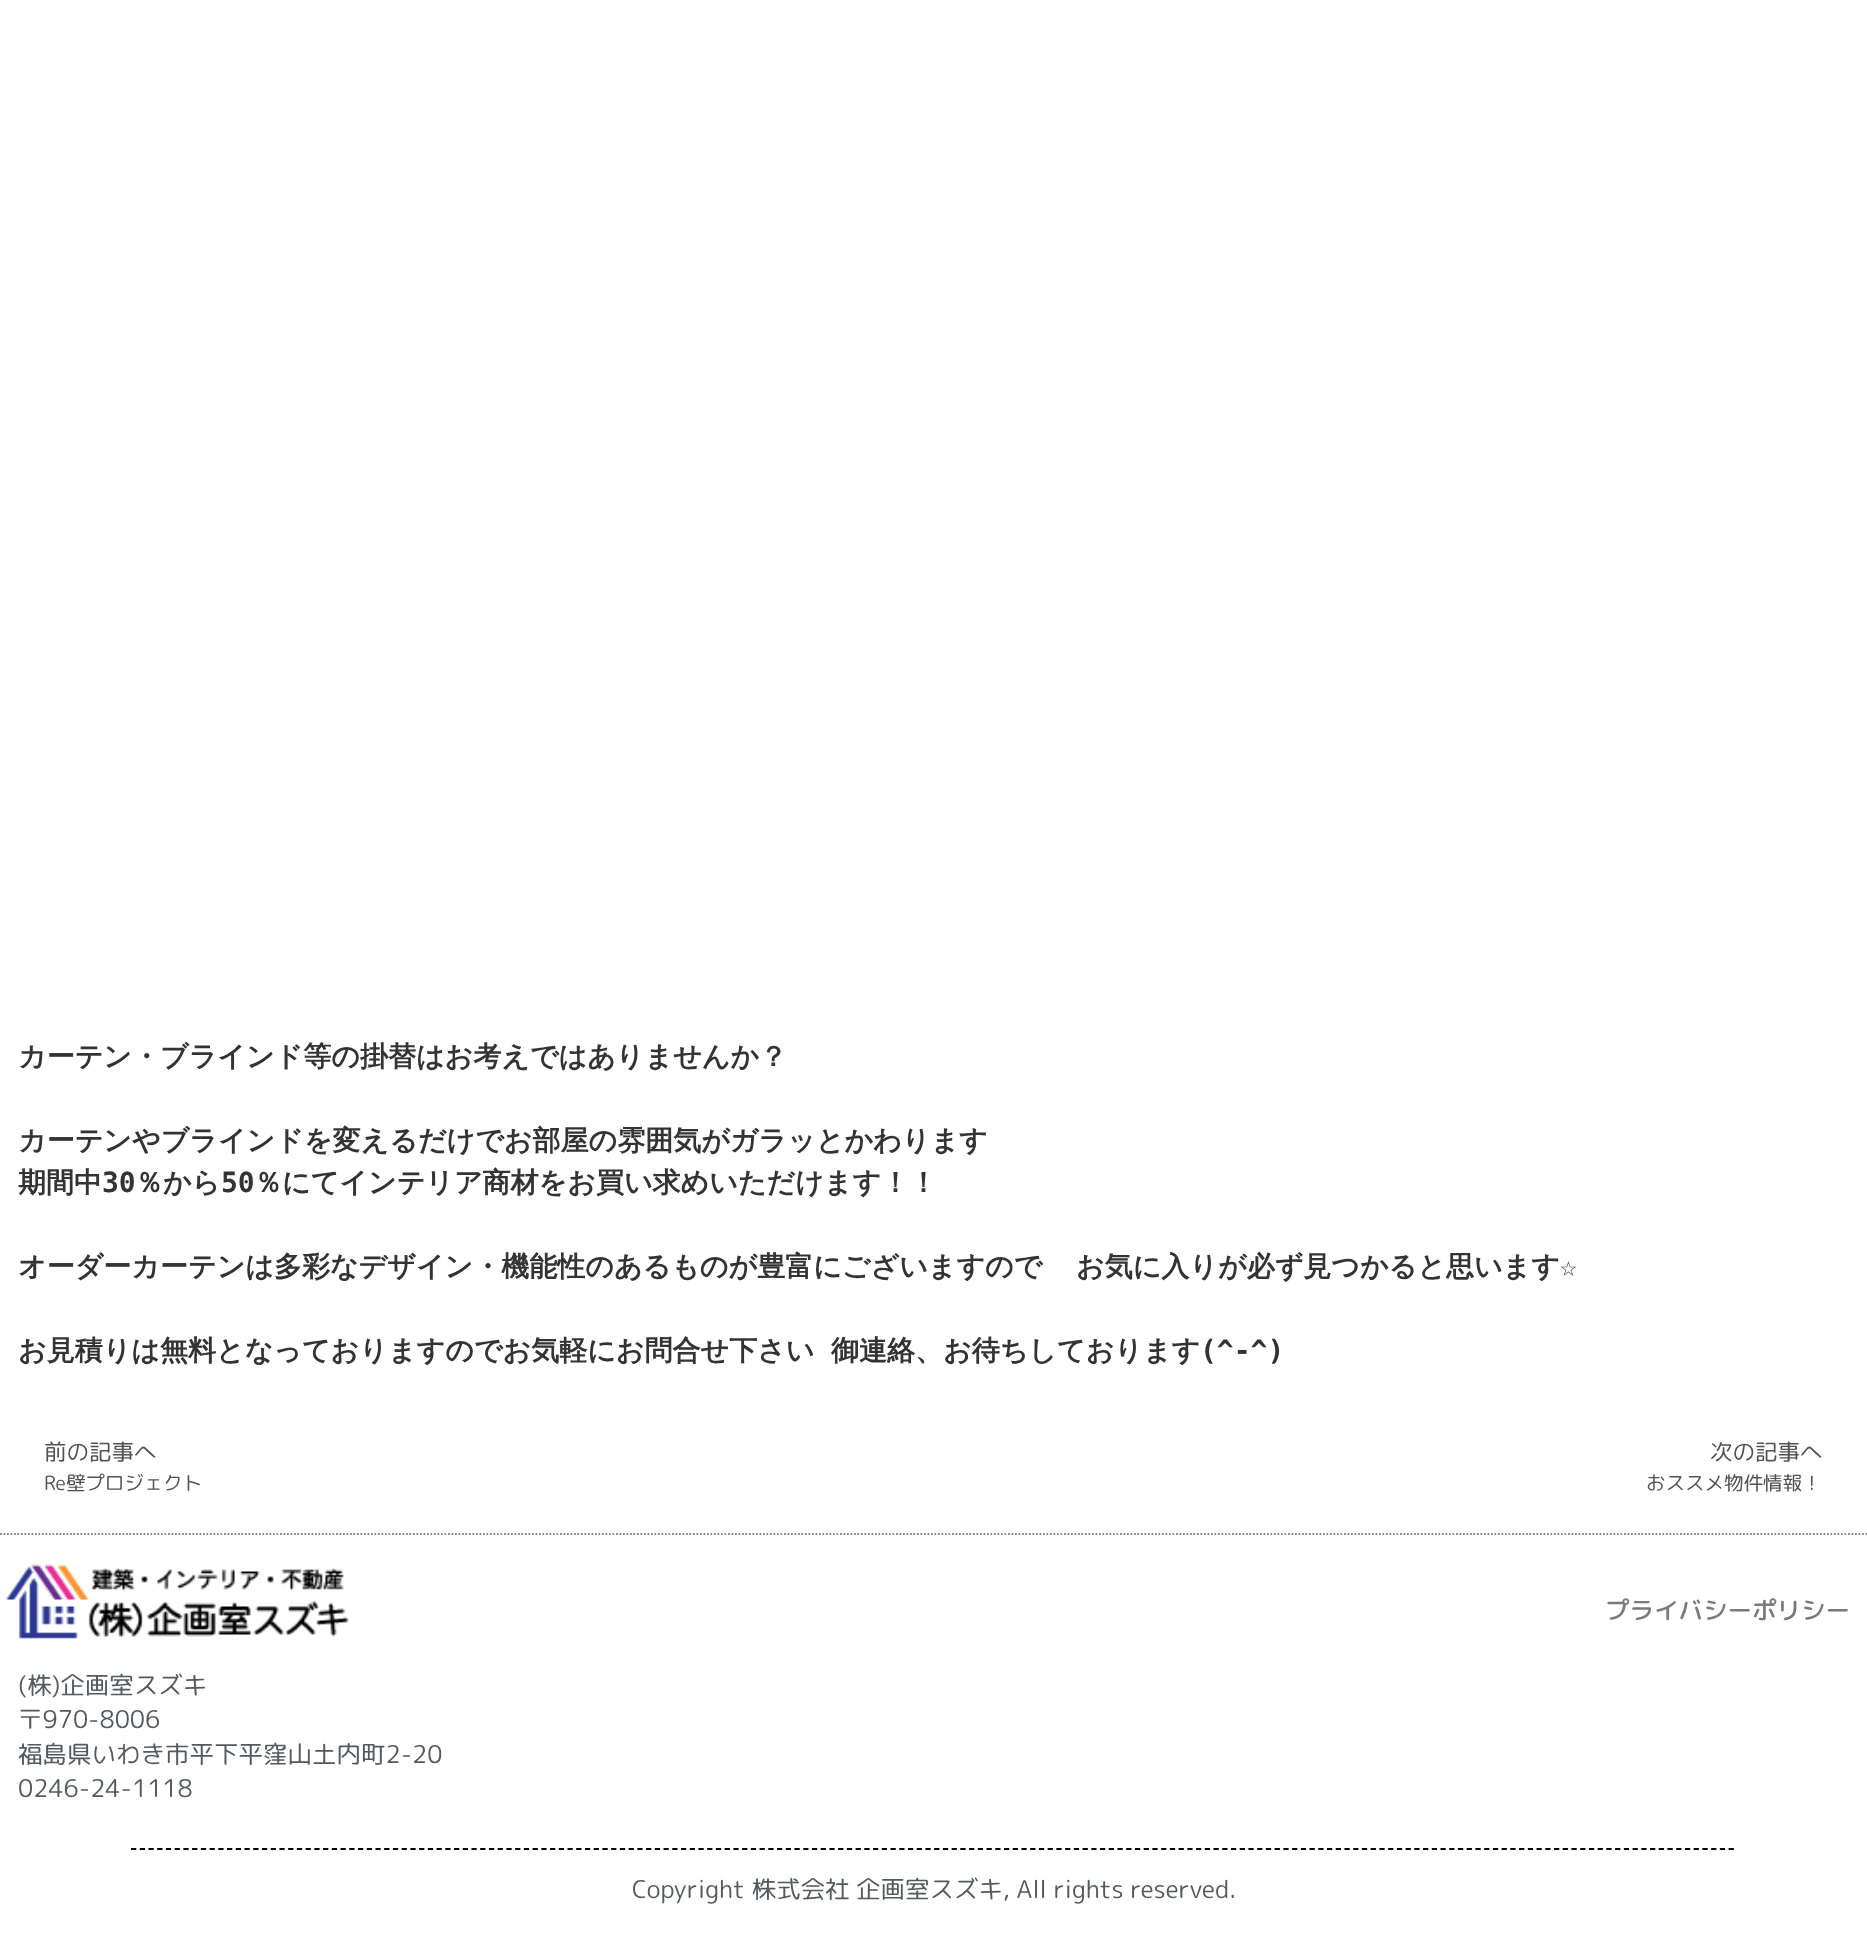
<!DOCTYPE html>
<meta charset="utf-8">
<style>body { margin: 0 } canvas { display: block }</style>
<canvas id="canvas" width="1867" height="1945"></canvas>
<img id="img1" src="images/1.png" hidden>
<script>
window.onload = function () {
    const canvas = document.getElementById('canvas');
    const context = canvas.getContext('2d');
    context.miterLimit = 4;
    context.fontKerning = 'normal';

    context.fillStyle = 'rgb(255, 255, 255)';
    context.fillRect(0, 0, 1867, 1945);
    context.beginPath();
    context.moveTo(0, 1534);
    context.lineTo(1867, 1534);
    context.strokeStyle = 'rgb(135, 135, 135)';
    context.lineWidth = 1.8;
    context.setLineDash([1.75, 1.75]);
    context.stroke();
    context.drawImage(document.getElementById('img1'), 6, 1564, 343, 75);
    context.beginPath();
    context.moveTo(131, 1849);
    context.lineTo(1736, 1849);
    context.strokeStyle = 'rgb(0, 0, 0)';
    context.setLineDash([5.25, 3.48]);
    context.stroke();
    context.font = 'bold 28px WenQuanYi Zen Hei';
    context.fillStyle = 'rgb(51, 51, 51)';
    context.fillText('カーテン・ブラインド等の掛替はお考えではありませんか？', 18, 1066);
    context.fillText('カーテンやブラインドを変えるだけでお部屋の雰囲気がガラッとかわります', 18, 1150);
    context.fillText('期間中', 18, 1192);
    context.font = 'bold 28px DejaVu Sans Mono';
    context.fillText('30', 102, 1192);
    context.font = 'bold 28px WenQuanYi Zen Hei';
    context.fillText('％から', 135, 1192);
    context.font = 'bold 28px DejaVu Sans Mono';
    context.fillText('50', 221, 1192);
    context.font = 'bold 28px WenQuanYi Zen Hei';
    context.fillText('％にてインテリア商材をお買い求めいただけます！！', 254, 1192);
    context.fillText('オーダーカーテンは多彩なデザイン・機能性のあるものが豊富にございますので', 18, 1276);
    context.fillText('お気に入りが必ず見つかると思います', 1076, 1276);
    context.font = 'bold 28px DejaVu Sans Mono';
    context.fillText('☆', 1560, 1276);
    context.font = 'bold 28px WenQuanYi Zen Hei';
    context.fillText('お見積りは無料となっておりますのでお気軽にお問合せ下さい', 18, 1360);
    context.fillText('御連絡、お待ちしております', 831, 1360);
    context.font = 'bold 28px DejaVu Sans Mono';
    context.fillText('(^-^)', 1200, 1360);
    context.font = '22.5px "Rounded Mplus 1c"';
    context.fillStyle = 'rgb(82, 82, 82)';
    context.fillText('前の記事へ', 44, 1460);
    context.font = '19.5px "Rounded Mplus 1c"';
    context.fillText('Re壁プロジェクト', 44, 1490);
    context.font = '22.5px "Rounded Mplus 1c"';
    context.fillText('次の記事へ', 1710, 1460);
    context.font = '19.5px "Rounded Mplus 1c"';
    context.fillText('おススメ物件情報！', 1646, 1490);
    context.font = '500 24.5px "Rounded Mplus 1c"';
    context.fillStyle = 'rgb(122, 122, 122)';
    context.fillText('プライバシーポリシー', 1605, 1619);
    context.font = '24.5px "Rounded Mplus 1c"';
    context.fillStyle = 'rgb(84, 89, 95)';
    context.fillText('(株)企画室スズキ', 18, 1694);
    context.fillText('〒970-8006', 18, 1728);
    context.fillText('福島県いわき市平下平窪山土内町2-20', 18, 1763);
    context.fillText('0246-24-1118', 18, 1797);
    context.fillText('Copyright 株式会社 企画室スズキ, All rights reserved.', 632, 1898);
};
</script>
